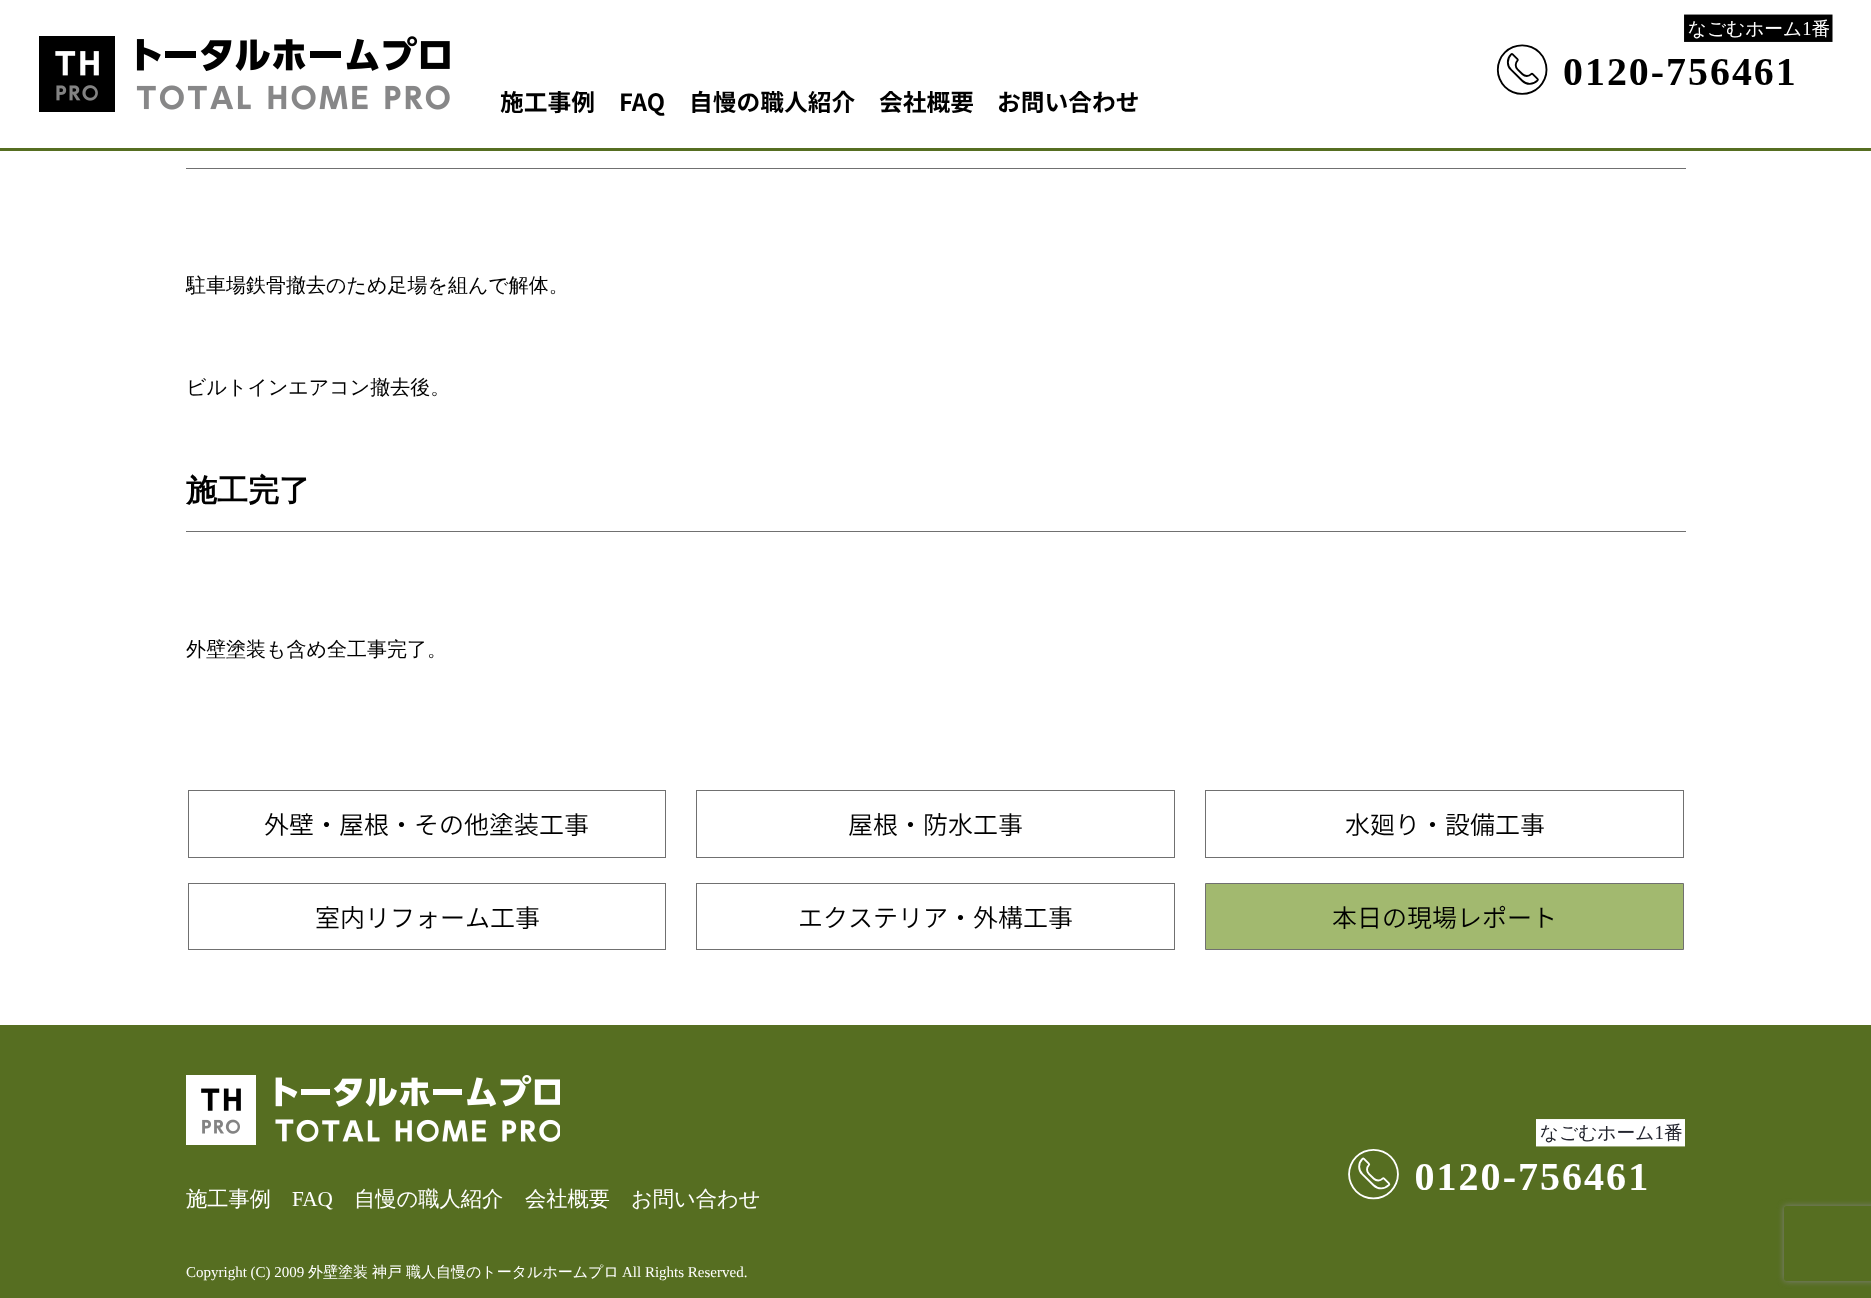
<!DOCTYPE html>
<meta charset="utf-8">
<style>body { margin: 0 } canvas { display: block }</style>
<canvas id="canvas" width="1871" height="1298"></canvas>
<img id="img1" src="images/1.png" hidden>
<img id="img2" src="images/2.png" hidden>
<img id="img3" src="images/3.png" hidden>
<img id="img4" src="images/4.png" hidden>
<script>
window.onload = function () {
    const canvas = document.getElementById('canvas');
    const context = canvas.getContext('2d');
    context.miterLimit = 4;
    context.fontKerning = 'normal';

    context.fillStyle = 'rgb(255, 255, 255)';
    context.fillRect(0, 0, 1871, 1298);
    context.fillStyle = 'rgb(86, 110, 33)';
    context.fillRect(0, 148, 1871, 3);
    context.drawImage(document.getElementById('img1'), 39, 36, 411, 76);
    context.drawImage(document.getElementById('img2'), 1496, 14, 337, 81);
    context.fillStyle = 'rgb(112, 112, 112)';
    context.fillRect(186, 168, 1500, 1);
    context.fillRect(186, 531, 1500, 1);
    context.strokeStyle = 'rgb(112, 112, 112)';
    context.strokeRect(188.5, 790.5, 477, 67);
    context.strokeRect(696.5, 790.5, 478, 67);
    context.strokeRect(1205.5, 790.5, 478, 67);
    context.strokeRect(188.5, 883.5, 477, 66);
    context.strokeRect(696.5, 883.5, 478, 66);
    context.fillStyle = 'rgb(162, 185, 111)';
    context.beginPath();
    context.rect(1205.5, 883.5, 478, 66);
    context.fill();
    context.stroke();
    context.fillStyle = 'rgb(86, 110, 33)';
    context.fillRect(0, 1025, 1871, 273);
    context.drawImage(document.getElementById('img3'), 186, 1075, 374, 70);
    context.drawImage(document.getElementById('img4'), 1348, 1119, 337, 81);
    context.save();
    context.beginPath();
    context.moveTo(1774, 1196);
    context.lineTo(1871, 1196);
    context.lineTo(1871, 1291);
    context.lineTo(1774, 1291);
    context.closePath();
    context.moveTo(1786.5, 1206);
    context.lineTo(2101.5, 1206);
    context.bezierCurveTo(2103, 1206, 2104, 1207, 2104, 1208.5);
    context.lineTo(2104, 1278.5);
    context.bezierCurveTo(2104, 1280, 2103, 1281, 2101.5, 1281);
    context.lineTo(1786.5, 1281);
    context.bezierCurveTo(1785, 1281, 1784, 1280, 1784, 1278.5);
    context.lineTo(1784, 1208.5);
    context.bezierCurveTo(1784, 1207, 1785, 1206, 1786.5, 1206);
    context.closePath();
    context.clip('evenodd');
    context.fillStyle = 'rgb(128, 128, 128)';
    context.filter = 'blur(3px)';
    context.beginPath();
    context.roundRect(1784, 1206, 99, 75, 2.5);
    context.fill();
    context.filter = 'none';
    context.restore();
    context.font = 'bold 23.75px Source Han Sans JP';
    context.fillStyle = 'rgb(0, 0, 0)';
    context.fillText('施工事例', 500, 111);
    context.fillText('FAQ', 619, 111);
    context.fillText('自慢の職人紹介', 689, 111);
    context.fillText('会社概要', 879, 111);
    context.fillText('お問い合わせ', 997, 111);
    context.font = '500 20px WenQuanYi Zen Hei';
    context.fillText('駐車場鉄骨撤去のため足場を組んで解体。', 186, 292);
    context.fillText('ビルトインエアコン撤去後。', 186, 394);
    context.font = 'bold 31px WenQuanYi Zen Hei';
    context.fillText('施工完了', 186, 501);
    context.font = '500 20px WenQuanYi Zen Hei';
    context.fillText('外壁塗装も含め全工事完了。', 186, 656);
    context.font = '300 25px Source Han Sans JP';
    context.fillText('外壁・屋根・その他塗装工事', 264, 834);
    context.fillText('屋根・防水工事', 848, 834);
    context.fillText('水廻り・設備工事', 1345, 834);
    context.fillText('室内リフォーム工事', 315, 927);
    context.fillText('エクステリア・外構工事', 798, 927);
    context.fillText('本日の現場レポート', 1332, 927);
    context.font = '500 21.25px WenQuanYi Zen Hei';
    context.fillStyle = 'rgb(255, 255, 255)';
    context.fillText('施工事例', 186, 1206);
    context.font = '21.25px Liberation Serif';
    context.fillText('FAQ', 292, 1206);
    context.font = '500 21.25px WenQuanYi Zen Hei';
    context.fillText('自慢の職人紹介', 354, 1206);
    context.fillText('会社概要', 525, 1206);
    context.fillText('お問い合わせ', 631, 1206);
    context.font = '15px Liberation Serif';
    context.fillText('Copyright (C) 2009', 186, 1277);
    context.font = '500 15px WenQuanYi Zen Hei';
    context.fillText('外壁塗装', 308, 1277);
    context.fillText('神戸', 372, 1277);
    context.fillText('職人自慢のトータルホームプロ', 406, 1277);
    context.font = '15px Liberation Serif';
    context.fillText('All Rights Reserved.', 622, 1277);
};
</script>
